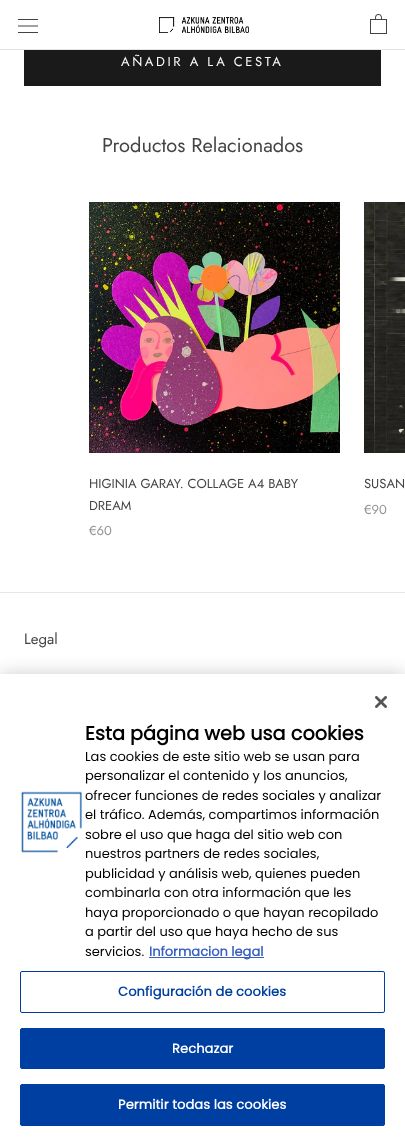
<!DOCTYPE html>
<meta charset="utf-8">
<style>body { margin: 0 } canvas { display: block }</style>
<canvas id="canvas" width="405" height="1141"></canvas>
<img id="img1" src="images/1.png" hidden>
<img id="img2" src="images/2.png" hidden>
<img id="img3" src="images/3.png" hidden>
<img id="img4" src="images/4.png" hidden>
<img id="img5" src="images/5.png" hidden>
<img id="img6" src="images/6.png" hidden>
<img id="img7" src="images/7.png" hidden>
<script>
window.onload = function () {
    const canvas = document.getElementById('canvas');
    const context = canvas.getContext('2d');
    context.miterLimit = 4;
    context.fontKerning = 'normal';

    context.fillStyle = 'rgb(255, 255, 255)';
    context.fillRect(0, 0, 405, 1141);
    context.strokeStyle = 'rgb(26, 26, 26)';
    context.strokeRect(24.5, 37.5, 356, 48);
    context.fillRect(24, 37, 357, 12);
    context.fillStyle = 'rgb(227, 227, 227)';
    context.fillRect(0, 49, 405, 1);
    context.drawImage(document.getElementById('img1'), 18, 19, 20, 14);
    context.drawImage(document.getElementById('img2'), 159, 17, 90, 16);
    context.drawImage(document.getElementById('img3'), 370, 14, 17, 20);
    context.fillStyle = 'rgb(26, 26, 26)';
    context.fillRect(25, 50, 355, 35);
    context.drawImage(document.getElementById('img4'), 89, 202, 251, 251);
    context.drawImage(document.getElementById('img5'), 364, 202, 41, 251);
    context.fillStyle = 'rgb(231, 231, 231)';
    context.fillRect(0, 592, 405, 1);
    context.fillStyle = 'rgba(0, 0, 0, 0.2)';
    context.filter = 'blur(9px)';
    context.beginPath();
    context.rect(0, 674, 405, 467);
    context.fill();
    context.filter = 'none';
    context.fillStyle = 'rgb(255, 255, 255)';
    context.fillRect(0, 674, 405, 467);
    context.drawImage(document.getElementById('img6'), 375, 696, 12, 12);
    context.drawImage(document.getElementById('img7'), 21, 791, 61, 62);
    context.fillStyle = 'rgb(56, 96, 190)';
    context.fillRect(149, 957, 115, 1);
    context.beginPath();
    context.roundRect(20.5, 971.5, 364, 41, 1.5);
    context.strokeStyle = 'rgb(0, 63, 162)';
    context.stroke();
    context.fillStyle = 'rgb(0, 63, 162)';
    context.beginPath();
    context.roundRect(20.5, 1028.5, 364, 40, 1.5);
    context.fill();
    context.stroke();
    context.beginPath();
    context.roundRect(20.5, 1084.5, 364, 41, 1.5);
    context.fill();
    context.stroke();
    context.letterSpacing = '2.6px';
    context.font = '13px Jost';
    context.fillStyle = 'rgb(255, 255, 255)';
    context.fillText('AÑADIR A LA CESTA', 121, 66);
    context.letterSpacing = '0px';
    context.font = '20px Jost';
    context.fillStyle = 'rgb(68, 68, 68)';
    context.fillText('Productos Relacionados', 102, 152);
    context.font = '13px Jost';
    context.fillText('HIGINIA GARAY. COLLAGE A4 BABY', 89, 488);
    context.fillText('DREAM', 89, 510);
    context.fillStyle = 'rgb(147, 147, 147)';
    context.fillText('€60', 89, 535);
    context.fillStyle = 'rgb(68, 68, 68)';
    context.fillText('SUSAN', 364, 488);
    context.fillStyle = 'rgb(147, 147, 147)';
    context.fillText('€90', 364, 514);
    context.font = '15px Jost';
    context.fillStyle = 'rgb(68, 68, 68)';
    context.fillText('Legal', 24, 644);
    context.font = 'bold 19.25px Poppins';
    context.fillStyle = 'rgb(0, 0, 0)';
    context.fillText('Esta página web usa cookies', 85, 740);
    context.font = '13px Poppins';
    context.fillText('Las cookies de este sitio web se usan para', 85, 761);
    context.fillText('personalizar el contenido y los anuncios,', 85, 780);
    context.fillText('ofrecer funciones de redes sociales y analizar', 85, 800);
    context.fillText('el tráfico. Además, compartimos información', 85, 819);
    context.fillText('sobre el uso que haga del sitio web con', 85, 839);
    context.fillText('nuestros partners de redes sociales,', 85, 858);
    context.fillText('publicidad y análisis web, quienes pueden', 85, 878);
    context.fillText('combinarla con otra información que les', 85, 897);
    context.fillText('haya proporcionado o que hayan recopilado', 85, 917);
    context.fillText('a partir del uso que haya hecho de sus', 85, 936);
    context.fillText('servicios.', 85, 956);
    context.font = 'bold 13px Poppins';
    context.fillStyle = 'rgb(56, 96, 190)';
    context.fillText('Informacion legal', 149, 956);
    context.letterSpacing = '0.1px';
    context.fillStyle = 'rgb(0, 63, 162)';
    context.fillText('Configuración de cookies', 118, 996);
    context.fillStyle = 'rgb(255, 255, 255)';
    context.fillText('Rechazar', 172, 1053);
    context.fillText('Permitir todas las cookies', 118, 1109);
};
</script>
